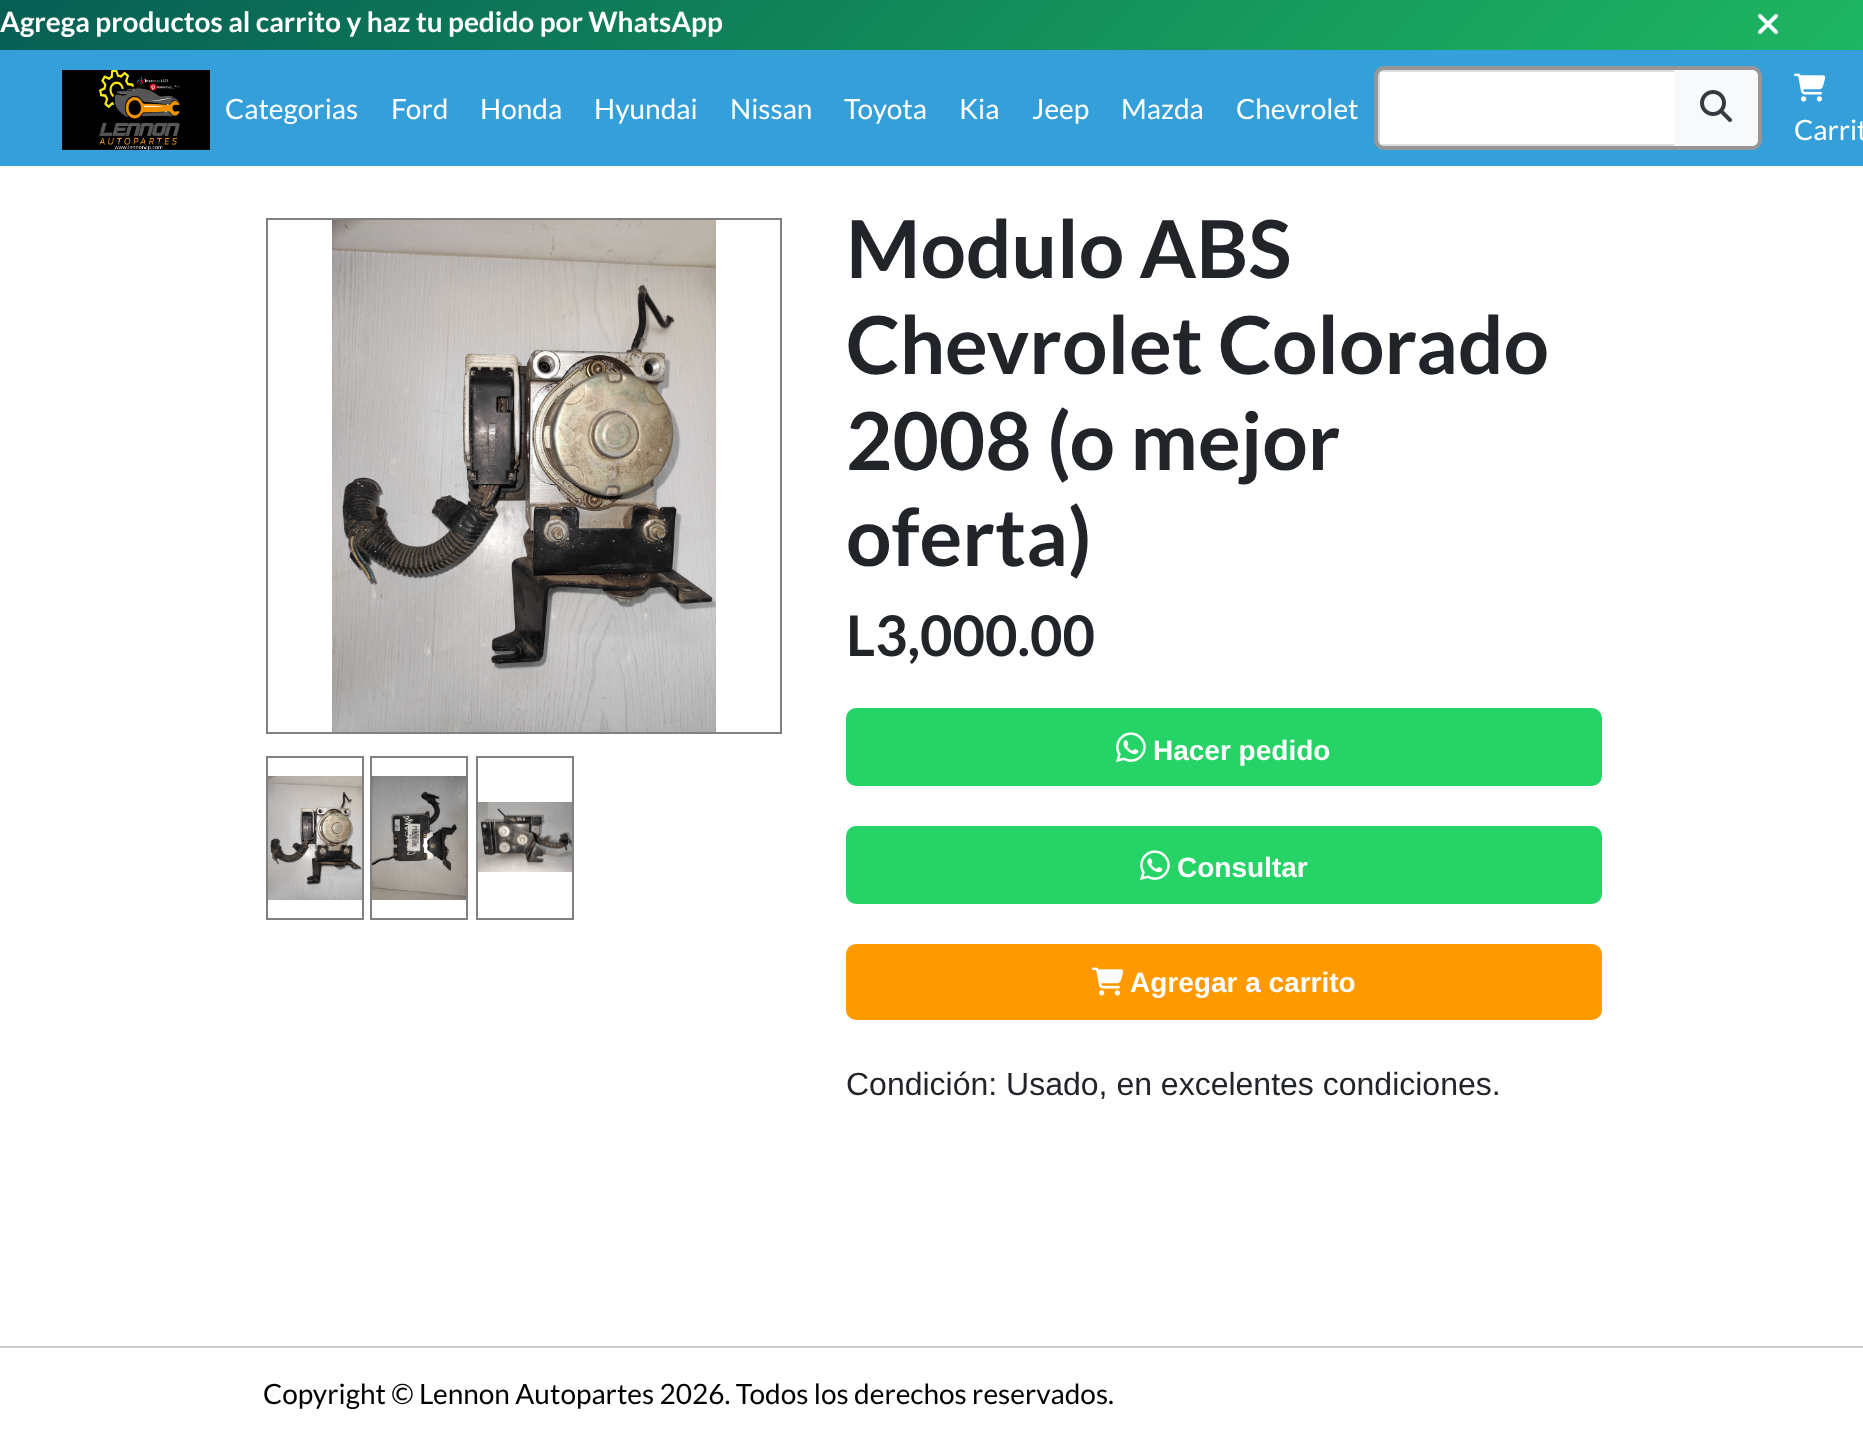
<!DOCTYPE html>
<meta charset="utf-8">
<style>body { margin: 0 } canvas { display: block }</style>
<canvas id="canvas" width="1863" height="1447"></canvas>
<img id="img1" src="images/1.png" hidden>
<img id="img2" src="images/2.png" hidden>
<img id="img3" src="images/3.png" hidden>
<img id="img4" src="images/4.png" hidden>
<img id="img5" src="images/5.png" hidden>
<img id="img6" src="images/6.png" hidden>
<img id="img7" src="images/7.png" hidden>
<img id="img8" src="images/8.png" hidden>
<img id="img9" src="images/9.png" hidden>
<img id="img10" src="images/10.png" hidden>
<script>
window.onload = function () {
    const canvas = document.getElementById('canvas');
    const context = canvas.getContext('2d');
    context.miterLimit = 4;
    context.fontKerning = 'normal';
    let gradient;

    context.fillStyle = 'rgb(255, 255, 255)';
    context.fillRect(0, 0, 1863, 1447);
    gradient = context.createLinearGradient(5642, 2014, 1814, -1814);
    gradient.addColorStop(0, 'rgb(7, 94, 84)');
    gradient.addColorStop(0.33, 'rgb(18, 140, 126)');
    gradient.addColorStop(0.67, 'rgb(37, 211, 102)');
    gradient.addColorStop(1, 'rgb(7, 94, 84)');
    context.fillStyle = gradient;
    context.fillRect(0, 0, 1863, 50);
    context.drawImage(document.getElementById('img1'), 1758, 14, 20, 20);
    context.fillStyle = 'rgb(53, 159, 217)';
    context.fillRect(0, 50, 1863, 116);
    context.drawImage(document.getElementById('img2'), 62, 70, 148, 80);
    context.beginPath();
    context.roundRect(1376, 68, 384, 80, 8);
    context.strokeStyle = 'rgb(151, 151, 151)';
    context.lineWidth = 4;
    context.stroke();
    context.fillStyle = 'rgb(255, 255, 255)';
    context.fillRect(1380, 72, 294, 72);
    context.save();
    context.beginPath();
    context.roundRect(1378, 70, 380, 76, 6);
    context.clip();
    context.fillStyle = 'rgb(221, 221, 221)';
    context.fillRect(1378, 70, 300, 2);
    context.fillRect(1378, 144, 300, 2);
    context.fillRect(1378, 70, 2, 76);
    context.restore();
    context.fillStyle = 'rgb(248, 249, 250)';
    context.beginPath();
    context.roundRect(1674, 70, 84, 76, [0, 6, 6, 0]);
    context.fill();
    context.beginPath();
    context.moveTo(1674, 70);
    context.lineTo(1674, 146);
    context.lineTo(1752, 146);
    context.bezierCurveTo(1755, 146, 1758, 143, 1758, 140);
    context.lineTo(1758, 76);
    context.bezierCurveTo(1758, 73, 1755, 70, 1752, 70);
    context.closePath();
    context.moveTo(1676, 72);
    context.lineTo(1676, 144);
    context.lineTo(1756, 144);
    context.lineTo(1756, 72);
    context.closePath();
    context.fill('evenodd');
    context.drawImage(document.getElementById('img3'), 1700, 90, 32, 32);
    context.drawImage(document.getElementById('img4'), 1794, 73, 32, 29);
    context.strokeStyle = 'rgb(128, 128, 128)';
    context.lineWidth = 2;
    context.strokeRect(267, 219, 514, 514);
    context.drawImage(document.getElementById('img5'), 332, 220, 384, 512);
    context.strokeRect(267, 757, 96, 162);
    context.drawImage(document.getElementById('img6'), 268, 776, 94, 124);
    context.strokeRect(371, 757, 96, 162);
    context.drawImage(document.getElementById('img7'), 372, 776, 94, 124);
    context.strokeRect(477, 757, 96, 162);
    context.drawImage(document.getElementById('img8'), 478, 802, 94, 70);
    context.fillStyle = 'rgb(37, 211, 102)';
    context.beginPath();
    context.roundRect(846, 708, 756, 78, 10);
    context.fill();
    context.drawImage(document.getElementById('img9'), 1116, 732, 30, 31);
    context.beginPath();
    context.roundRect(846, 826, 756, 78, 10);
    context.fill();
    context.drawImage(document.getElementById('img9'), 1140, 850, 30, 31);
    context.fillStyle = 'rgb(255, 153, 0)';
    context.beginPath();
    context.roundRect(846, 944, 756, 76, 10);
    context.fill();
    context.drawImage(document.getElementById('img10'), 1092, 967, 32, 29);
    context.fillStyle = 'rgb(204, 204, 204)';
    context.fillRect(0, 1346, 1863, 2);
    context.font = 'bold 28px Lato';
    context.fillStyle = 'rgb(255, 255, 255)';
    context.fillText('Agrega productos al carrito y haz tu pedido por WhatsApp', 0, 32);
    context.font = '28px Lato';
    context.fillText('Categorias', 225, 119);
    context.fillText('Ford', 391, 119);
    context.fillText('Honda', 480, 119);
    context.fillText('Hyundai', 594, 119);
    context.fillText('Nissan', 730, 119);
    context.fillText('Toyota', 844, 119);
    context.fillText('Kia', 959, 119);
    context.fillText('Jeep', 1032, 119);
    context.fillText('Mazda', 1121, 119);
    context.fillText('Chevrolet', 1236, 119);
    context.fillText('Carrit', 1794, 140);
    context.font = 'bold 80px Lato';
    context.fillStyle = 'rgb(33, 37, 41)';
    context.fillText('Modulo ABS', 846, 278);
    context.fillText('Chevrolet Colorado', 846, 374);
    context.fillText('2008 (o mejor', 846, 470);
    context.fillText('oferta)', 846, 566);
    context.font = 'bold 56px Lato';
    context.fillText('L3,000.00', 846, 656);
    context.font = 'bold 28px Liberation Sans';
    context.fillStyle = 'rgb(255, 255, 255)';
    context.fillText('Hacer pedido', 1153, 760);
    context.fillText('Consultar', 1177, 877);
    context.fillText('Agregar a carrito', 1130, 992);
    context.font = '32px Liberation Sans';
    context.fillStyle = 'rgb(33, 37, 41)';
    context.fillText('Condición: Usado, en excelentes condiciones.', 846, 1095);
    context.font = '28px Lato';
    context.fillStyle = 'rgb(0, 0, 0)';
    context.fillText('Copyright © Lennon Autopartes 2026. Todos los derechos reservados.', 263, 1404);
};
</script>
